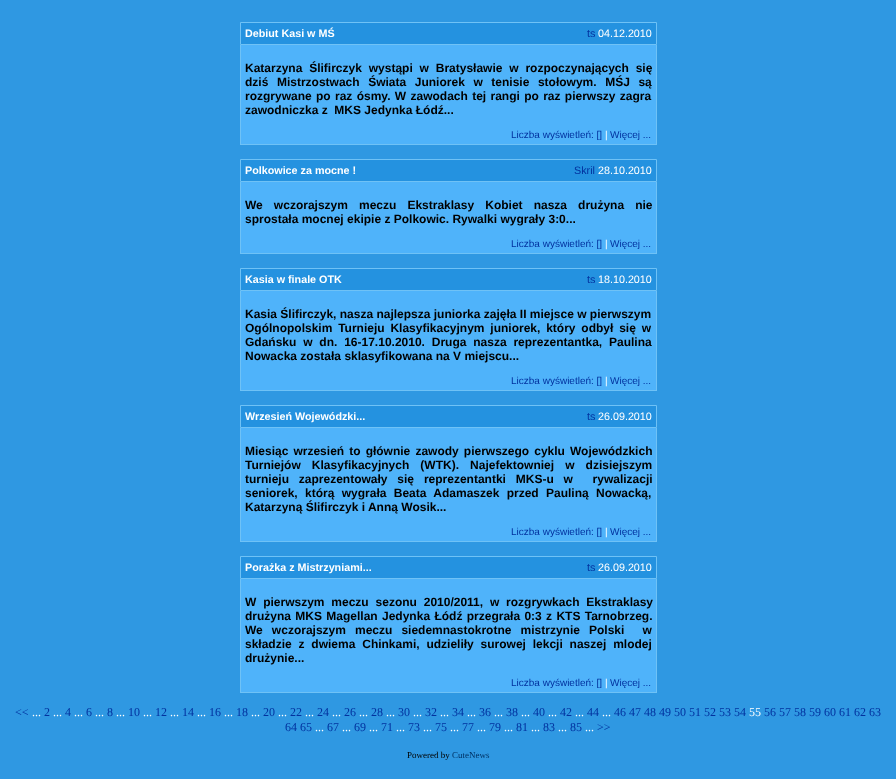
<!DOCTYPE html>
<meta charset="utf-8">
<style>body { margin: 0 } canvas { display: block }</style>
<canvas id="canvas" width="896" height="779"></canvas>
<script>
window.onload = function () {
    const canvas = document.getElementById('canvas');
    const context = canvas.getContext('2d');
    context.miterLimit = 4;
    context.fontKerning = 'normal';

    context.fillStyle = 'rgb(47, 152, 226)';
    context.fillRect(0, 0, 896, 779);
    context.fillStyle = 'rgb(36, 146, 224)';
    context.beginPath();
    context.rect(240.5, 22.5, 416, 22);
    context.fill();
    context.strokeStyle = 'rgb(111, 194, 246)';
    context.stroke();
    context.fillStyle = 'rgb(79, 179, 250)';
    context.fillRect(241, 45, 415, 99);
    context.fillStyle = 'rgb(111, 194, 246)';
    context.fillRect(656, 45, 1, 100);
    context.fillRect(240, 144, 417, 1);
    context.fillRect(240, 45, 1, 100);
    context.fillStyle = 'rgb(36, 146, 224)';
    context.beginPath();
    context.rect(240.5, 159.5, 416, 22);
    context.fill();
    context.stroke();
    context.fillStyle = 'rgb(79, 179, 250)';
    context.fillRect(241, 182, 415, 71);
    context.fillStyle = 'rgb(111, 194, 246)';
    context.fillRect(656, 182, 1, 72);
    context.fillRect(240, 253, 417, 1);
    context.fillRect(240, 182, 1, 72);
    context.fillStyle = 'rgb(36, 146, 224)';
    context.beginPath();
    context.rect(240.5, 268.5, 416, 22);
    context.fill();
    context.stroke();
    context.fillStyle = 'rgb(79, 179, 250)';
    context.fillRect(241, 291, 415, 99);
    context.fillStyle = 'rgb(111, 194, 246)';
    context.fillRect(656, 291, 1, 100);
    context.fillRect(240, 390, 417, 1);
    context.fillRect(240, 291, 1, 100);
    context.fillStyle = 'rgb(36, 146, 224)';
    context.beginPath();
    context.rect(240.5, 405.5, 416, 22);
    context.fill();
    context.stroke();
    context.fillStyle = 'rgb(79, 179, 250)';
    context.fillRect(241, 428, 415, 113);
    context.fillStyle = 'rgb(111, 194, 246)';
    context.fillRect(656, 428, 1, 114);
    context.fillRect(240, 541, 417, 1);
    context.fillRect(240, 428, 1, 114);
    context.fillStyle = 'rgb(36, 146, 224)';
    context.beginPath();
    context.rect(240.5, 556.5, 416, 22);
    context.fill();
    context.stroke();
    context.fillStyle = 'rgb(79, 179, 250)';
    context.fillRect(241, 579, 415, 113);
    context.fillStyle = 'rgb(111, 194, 246)';
    context.fillRect(656, 579, 1, 114);
    context.fillRect(240, 692, 417, 1);
    context.fillRect(240, 579, 1, 114);
    context.font = 'bold 10.75px Liberation Sans';
    context.fillStyle = 'rgb(255, 255, 255)';
    context.fillText('Debiut Kasi w MŚ', 245, 37);
    context.font = '10.75px Liberation Sans';
    context.fillStyle = 'rgb(2, 50, 159)';
    context.fillText('ts', 587, 37);
    context.fillStyle = 'rgb(255, 255, 255)';
    context.fillText('04.12.2010', 598, 37);
    context.wordSpacing = '3.5px';
    context.font = 'bold 12px Liberation Sans';
    context.fillStyle = 'rgb(0, 0, 0)';
    context.fillText('Katarzyna Ślifirczyk wystąpi w Bratysławie w rozpoczynających się', 245, 72);
    context.wordSpacing = '5.25px';
    context.fillText('dziś Mistrzostwach Świata Juniorek w tenisie stołowym. MŚJ są', 245, 86);
    context.wordSpacing = '1px';
    context.fillText('rozgrywane po raz ósmy. W zawodach tej rangi po raz pierwszy zagra', 245, 100);
    context.wordSpacing = '0px';
    context.fillText('zawodniczka z  MKS Jedynka Łódź...', 245, 114);
    context.font = '10px Liberation Sans';
    context.fillStyle = 'rgb(2, 50, 159)';
    context.fillText('Liczba wyświetleń: []', 511, 138);
    context.fillStyle = 'rgb(255, 255, 255)';
    context.fillText('|', 605, 138);
    context.fillStyle = 'rgb(2, 50, 159)';
    context.fillText('Więcej ...', 610, 138);
    context.font = 'bold 10.75px Liberation Sans';
    context.fillStyle = 'rgb(255, 255, 255)';
    context.fillText('Polkowice za mocne !', 245, 174);
    context.font = '10.75px Liberation Sans';
    context.fillStyle = 'rgb(2, 50, 159)';
    context.fillText('Skril', 574, 174);
    context.fillStyle = 'rgb(255, 255, 255)';
    context.fillText('28.10.2010', 598, 174);
    context.wordSpacing = '7.75px';
    context.font = 'bold 12px Liberation Sans';
    context.fillStyle = 'rgb(0, 0, 0)';
    context.fillText('We wczorajszym meczu Ekstraklasy Kobiet nasza drużyna nie', 245, 209);
    context.wordSpacing = '0px';
    context.fillText('sprostała mocnej ekipie z Polkowic. Rywalki wygrały 3:0...', 245, 223);
    context.font = '10px Liberation Sans';
    context.fillStyle = 'rgb(2, 50, 159)';
    context.fillText('Liczba wyświetleń: []', 511, 247);
    context.fillStyle = 'rgb(255, 255, 255)';
    context.fillText('|', 605, 247);
    context.fillStyle = 'rgb(2, 50, 159)';
    context.fillText('Więcej ...', 610, 247);
    context.font = 'bold 10.75px Liberation Sans';
    context.fillStyle = 'rgb(255, 255, 255)';
    context.fillText('Kasia w finale OTK', 245, 283);
    context.font = '10.75px Liberation Sans';
    context.fillStyle = 'rgb(2, 50, 159)';
    context.fillText('ts', 587, 283);
    context.fillStyle = 'rgb(255, 255, 255)';
    context.fillText('18.10.2010', 598, 283);
    context.font = 'bold 12px Liberation Sans';
    context.fillStyle = 'rgb(0, 0, 0)';
    context.fillText('Kasia Ślifirczyk, nasza najlepsza juniorka zajęła II miejsce w pierwszym', 245, 318);
    context.wordSpacing = '2.5px';
    context.fillText('Ogólnopolskim Turnieju Klasyfikacyjnym juniorek, który odbył się w', 245, 332);
    context.wordSpacing = '3.5px';
    context.fillText('Gdańsku w dn. 16-17.10.2010. Druga nasza reprezentantka, Paulina', 245, 346);
    context.wordSpacing = '0px';
    context.fillText('Nowacka została sklasyfikowana na V miejscu...', 245, 360);
    context.font = '10px Liberation Sans';
    context.fillStyle = 'rgb(2, 50, 159)';
    context.fillText('Liczba wyświetleń: []', 511, 384);
    context.fillStyle = 'rgb(255, 255, 255)';
    context.fillText('|', 605, 384);
    context.fillStyle = 'rgb(2, 50, 159)';
    context.fillText('Więcej ...', 610, 384);
    context.font = 'bold 10.75px Liberation Sans';
    context.fillStyle = 'rgb(255, 255, 255)';
    context.fillText('Wrzesień Wojewódzki...', 245, 420);
    context.font = '10.75px Liberation Sans';
    context.fillStyle = 'rgb(2, 50, 159)';
    context.fillText('ts', 587, 420);
    context.fillStyle = 'rgb(255, 255, 255)';
    context.fillText('26.09.2010', 598, 420);
    context.wordSpacing = '1.75px';
    context.font = 'bold 12px Liberation Sans';
    context.fillStyle = 'rgb(0, 0, 0)';
    context.fillText('Miesiąc wrzesień to głównie zawody pierwszego cyklu Wojewódzkich', 245, 455);
    context.wordSpacing = '7.75px';
    context.fillText('Turniejów Klasyfikacyjnych (WTK). Najefektowniej w dzisiejszym', 245, 469);
    context.wordSpacing = '6.5px';
    context.fillText('turnieju zaprezentowały się reprezentantki MKS-u w  rywalizacji', 245, 483);
    context.wordSpacing = '4px';
    context.fillText('seniorek, którą wygrała Beata Adamaszek przed Pauliną Nowacką,', 245, 497);
    context.wordSpacing = '0px';
    context.fillText('Katarzyną Ślifirczyk i Anną Wosik...', 245, 511);
    context.font = '10px Liberation Sans';
    context.fillStyle = 'rgb(2, 50, 159)';
    context.fillText('Liczba wyświetleń: []', 511, 535);
    context.fillStyle = 'rgb(255, 255, 255)';
    context.fillText('|', 605, 535);
    context.fillStyle = 'rgb(2, 50, 159)';
    context.fillText('Więcej ...', 610, 535);
    context.font = 'bold 10.75px Liberation Sans';
    context.fillStyle = 'rgb(255, 255, 255)';
    context.fillText('Porażka z Mistrzyniami...', 245, 571);
    context.font = '10.75px Liberation Sans';
    context.fillStyle = 'rgb(2, 50, 159)';
    context.fillText('ts', 587, 571);
    context.fillStyle = 'rgb(255, 255, 255)';
    context.fillText('26.09.2010', 598, 571);
    context.wordSpacing = '3.5px';
    context.font = 'bold 12px Liberation Sans';
    context.fillStyle = 'rgb(0, 0, 0)';
    context.fillText('W pierwszym meczu sezonu 2010/2011, w rozgrywkach Ekstraklasy', 245, 606);
    context.wordSpacing = '1px';
    context.fillText('drużyna MKS Magellan Jedynka Łódź przegrała 0:3 z KTS Tarnobrzeg.', 245, 620);
    context.wordSpacing = '5.75px';
    context.fillText('We wczorajszym meczu siedemnastokrotne mistrzynie Polski  w', 245, 634);
    context.wordSpacing = '3.5px';
    context.fillText('składzie z dwiema Chinkami, udzieliły surowej lekcji naszej mlodej', 245, 648);
    context.wordSpacing = '0px';
    context.fillText('drużynie...', 245, 662);
    context.font = '10px Liberation Sans';
    context.fillStyle = 'rgb(2, 50, 159)';
    context.fillText('Liczba wyświetleń: []', 511, 686);
    context.fillStyle = 'rgb(255, 255, 255)';
    context.fillText('|', 605, 686);
    context.fillStyle = 'rgb(2, 50, 159)';
    context.fillText('Więcej ...', 610, 686);
    context.font = '12px Liberation Serif';
    context.fillText('<<', 15, 716);
    context.fillText('2', 44, 716);
    context.fillText('4', 65, 716);
    context.fillText('6', 86, 716);
    context.fillText('8', 107, 716);
    context.fillText('10', 128, 716);
    context.fillText('12', 155, 716);
    context.fillText('14', 182, 716);
    context.fillText('16', 209, 716);
    context.fillText('18', 236, 716);
    context.fillText('20', 263, 716);
    context.fillText('22', 290, 716);
    context.fillText('24', 317, 716);
    context.fillText('26', 344, 716);
    context.fillText('28', 371, 716);
    context.fillText('30', 398, 716);
    context.fillText('32', 425, 716);
    context.fillText('34', 452, 716);
    context.fillText('36', 479, 716);
    context.fillText('38', 506, 716);
    context.fillText('40', 533, 716);
    context.fillText('42', 560, 716);
    context.fillText('44', 587, 716);
    context.fillText('46 47 48 49 50 51 52 53 54', 614, 716);
    context.fillStyle = 'rgb(255, 255, 255)';
    context.fillText('55', 749, 716);
    context.fillStyle = 'rgb(2, 50, 159)';
    context.fillText('56 57 58 59 60 61 62 63', 764, 716);
    context.fillStyle = 'rgb(255, 255, 255)';
    context.fillText('...', 32, 716);
    context.fillText('...', 53, 716);
    context.fillText('...', 74, 716);
    context.fillText('...', 95, 716);
    context.fillText('...', 116, 716);
    context.fillText('...', 143, 716);
    context.fillText('...', 170, 716);
    context.fillText('...', 197, 716);
    context.fillText('...', 224, 716);
    context.fillText('...', 251, 716);
    context.fillText('...', 278, 716);
    context.fillText('...', 305, 716);
    context.fillText('...', 332, 716);
    context.fillText('...', 359, 716);
    context.fillText('...', 386, 716);
    context.fillText('...', 413, 716);
    context.fillText('...', 440, 716);
    context.fillText('...', 467, 716);
    context.fillText('...', 494, 716);
    context.fillText('...', 521, 716);
    context.fillText('...', 548, 716);
    context.fillText('...', 575, 716);
    context.fillText('...', 602, 716);
    context.fillStyle = 'rgb(2, 50, 159)';
    context.fillText('64 65', 285, 731);
    context.fillText('67', 327, 731);
    context.fillText('69', 354, 731);
    context.fillText('71', 381, 731);
    context.fillText('73', 408, 731);
    context.fillText('75', 435, 731);
    context.fillText('77', 462, 731);
    context.fillText('79', 489, 731);
    context.fillText('81', 516, 731);
    context.fillText('83', 543, 731);
    context.fillText('85', 570, 731);
    context.fillText('>>', 597, 731);
    context.fillStyle = 'rgb(255, 255, 255)';
    context.fillText('...', 315, 731);
    context.fillText('...', 342, 731);
    context.fillText('...', 369, 731);
    context.fillText('...', 396, 731);
    context.fillText('...', 423, 731);
    context.fillText('...', 450, 731);
    context.fillText('...', 477, 731);
    context.fillText('...', 504, 731);
    context.fillText('...', 531, 731);
    context.fillText('...', 558, 731);
    context.fillText('...', 585, 731);
    context.font = '9px Liberation Serif';
    context.fillStyle = 'rgb(0, 0, 0)';
    context.fillText('Powered by', 407, 758);
    context.fillStyle = 'rgb(0, 51, 102)';
    context.fillText('CuteNews', 452, 758);
};
</script>
